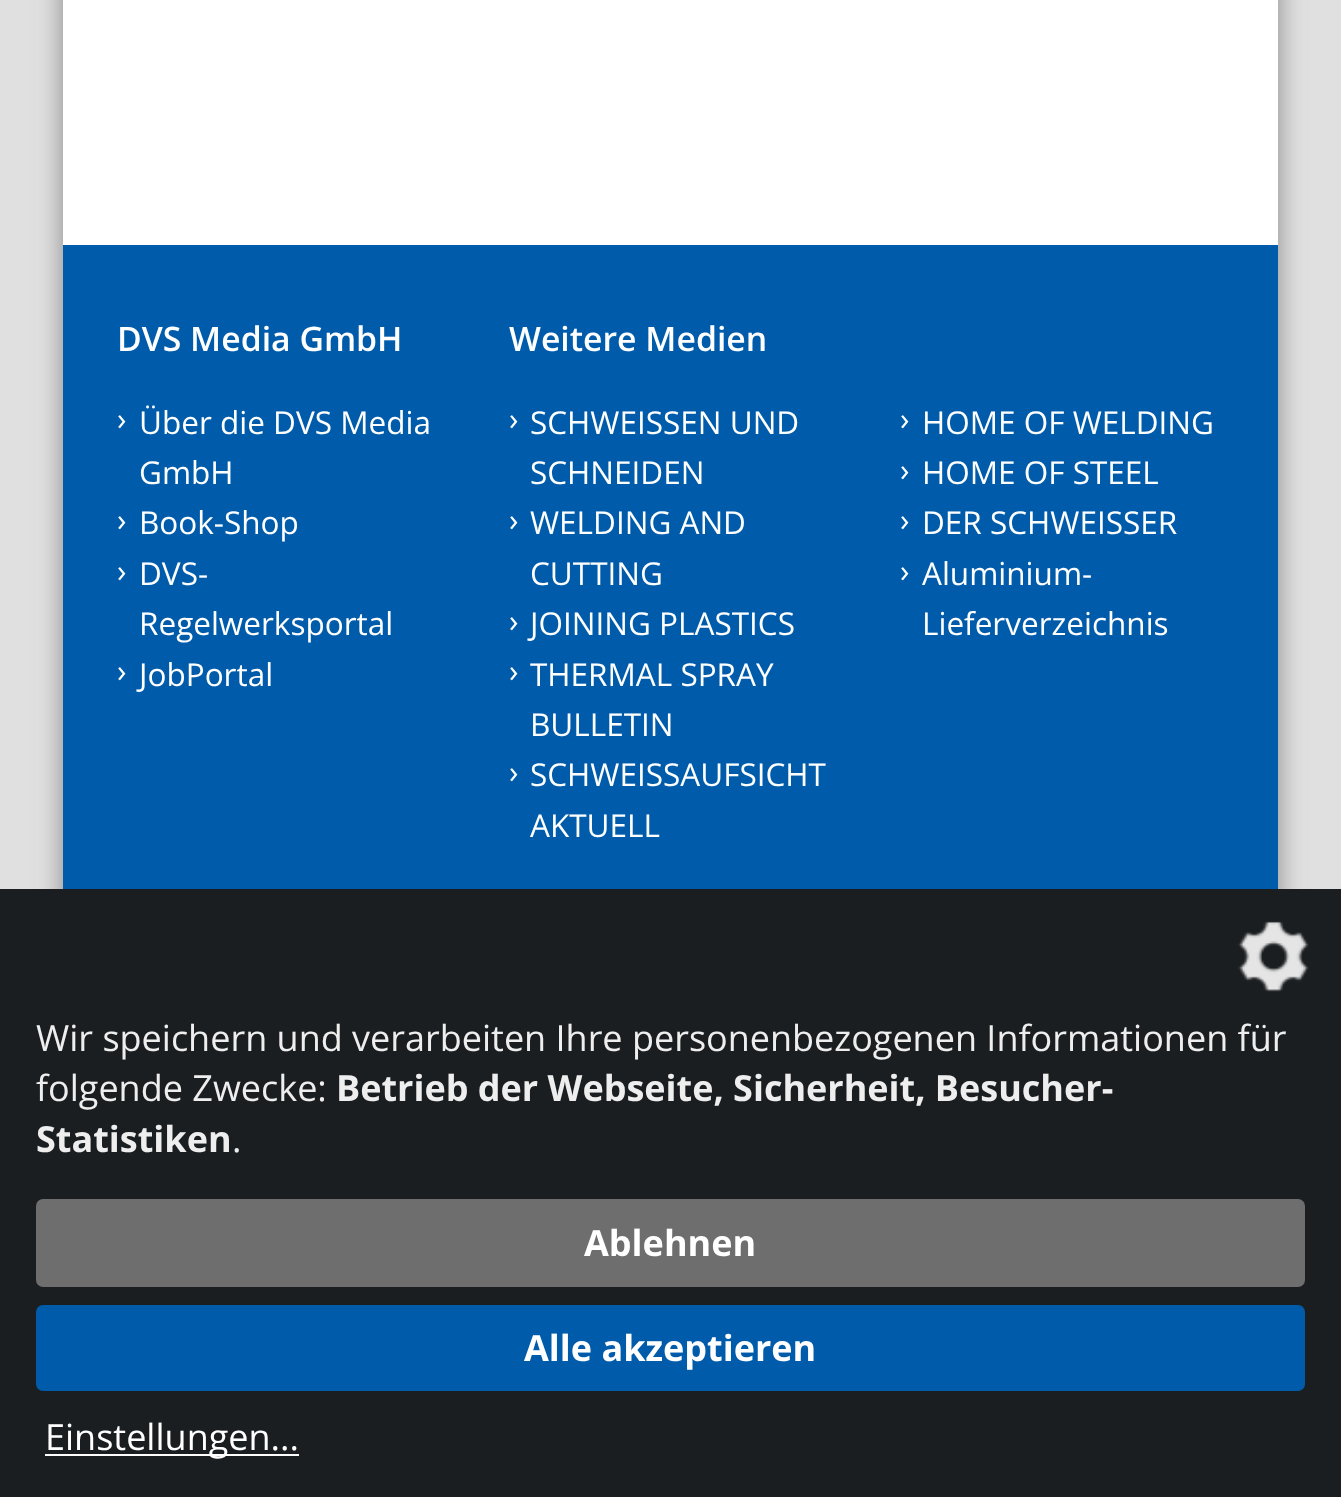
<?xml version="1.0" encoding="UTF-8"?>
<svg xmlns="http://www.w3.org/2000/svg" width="1341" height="1497">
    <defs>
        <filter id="blur1" x="-50%" y="-200%" width="200%" height="500%"><feGaussianBlur stdDeviation="13.5"/></filter>
    </defs>
    <rect width="100%" height="100%" fill="#E0E0E0"/>
    <rect x="63" y="-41" width="1215" height="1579" fill="#808080" fill-opacity="0.91" filter="url(#blur1)"/>
    <rect x="63" y="0" width="1215" height="245" fill="#FFFFFF"/>
    <rect x="63" y="245" width="1215" height="644" fill="#005CAA"/>
    <text x="117" y="351" font-family="Open Sans" font-size="33.75" font-weight="600" fill="#FFFFFF">DVS Media GmbH</text>
    <text x="117" y="430" font-family="Open Sans" font-size="31.5" fill="#FFFFFF">›</text>
    <text font-family="Open Sans" font-size="31.5" fill="#FFFFFF">
        <tspan x="139" y="434">Über die DVS Media</tspan>
        <tspan x="139" y="484">GmbH</tspan>
    </text>
    <text x="117" y="531" font-family="Open Sans" font-size="31.5" fill="#FFFFFF">›</text>
    <text x="139" y="534" font-family="Open Sans" font-size="31.5" fill="#FFFFFF">Book-Shop</text>
    <text x="117" y="582" font-family="Open Sans" font-size="31.5" fill="#FFFFFF">›</text>
    <text font-family="Open Sans" font-size="31.5" fill="#FFFFFF">
        <tspan x="139" y="585">DVS-</tspan>
        <tspan x="139" y="635">Regelwerksportal</tspan>
    </text>
    <text x="117" y="682" font-family="Open Sans" font-size="31.5" fill="#FFFFFF">›</text>
    <text x="139" y="686" font-family="Open Sans" font-size="31.5" fill="#FFFFFF">JobPortal</text>
    <text x="509" y="351" font-family="Open Sans" font-size="33.75" font-weight="600" fill="#FFFFFF">Weitere Medien</text>
    <text x="509" y="430" font-family="Open Sans" font-size="31.5" fill="#FFFFFF">›</text>
    <text font-family="Open Sans" font-size="31.5" fill="#FFFFFF">
        <tspan x="530" y="434">SCHWEISSEN UND</tspan>
        <tspan x="530" y="484">SCHNEIDEN</tspan>
    </text>
    <text x="509" y="531" font-family="Open Sans" font-size="31.5" fill="#FFFFFF">›</text>
    <text font-family="Open Sans" font-size="31.5" fill="#FFFFFF">
        <tspan x="530" y="534">WELDING AND</tspan>
        <tspan x="530" y="585">CUTTING</tspan>
    </text>
    <text x="509" y="632" font-family="Open Sans" font-size="31.5" fill="#FFFFFF">›</text>
    <text x="530" y="635" font-family="Open Sans" font-size="31.5" fill="#FFFFFF">JOINING PLASTICS</text>
    <text x="509" y="682" font-family="Open Sans" font-size="31.5" fill="#FFFFFF">›</text>
    <text font-family="Open Sans" font-size="31.5" fill="#FFFFFF">
        <tspan x="530" y="686">THERMAL SPRAY</tspan>
        <tspan x="530" y="736">BULLETIN</tspan>
    </text>
    <text x="509" y="783" font-family="Open Sans" font-size="31.5" fill="#FFFFFF">›</text>
    <text font-family="Open Sans" font-size="31.5" fill="#FFFFFF">
        <tspan x="530" y="786">SCHWEISSAUFSICHT</tspan>
        <tspan x="530" y="837">AKTUELL</tspan>
    </text>
    <text x="900" y="430" font-family="Open Sans" font-size="31.5" fill="#FFFFFF">›</text>
    <text x="922" y="434" font-family="Open Sans" font-size="31.5" fill="#FFFFFF">HOME OF WELDING</text>
    <text x="900" y="481" font-family="Open Sans" font-size="31.5" fill="#FFFFFF">›</text>
    <text x="922" y="484" font-family="Open Sans" font-size="31.5" fill="#FFFFFF">HOME OF STEEL</text>
    <text x="900" y="531" font-family="Open Sans" font-size="31.5" fill="#FFFFFF">›</text>
    <text x="922" y="534" font-family="Open Sans" font-size="31.5" fill="#FFFFFF">DER SCHWEISSER</text>
    <text x="900" y="582" font-family="Open Sans" font-size="31.5" fill="#FFFFFF">›</text>
    <text font-family="Open Sans" font-size="31.5" fill="#FFFFFF">
        <tspan x="922" y="585">Aluminium-</tspan>
        <tspan x="922" y="635">Lieferverzeichnis</tspan>
    </text>
    <rect x="0" y="889" width="1341" height="608" fill="#1B1E21"/>
    <image x="1238" y="921" width="71" height="71" href="img_01.png"/>
    <text font-family="Open Sans" font-size="36" fill="#EEEEEE">
        <tspan x="36" y="1051">Wir speichern und verarbeiten Ihre personenbezogenen Informationen für</tspan>
        <tspan x="36" y="1101">folgende Zwecke:</tspan>
    </text>
    <text x="336" y="1101" font-family="Open Sans" font-size="36" font-weight="700" fill="#EEEEEE">Betrieb der Webseite, Sicherheit, Besucher-</text>
    <text x="36" y="1152" font-family="Open Sans" font-size="36" font-weight="700" fill="#EEEEEE">Statistiken</text>
    <text x="232" y="1152" font-family="Open Sans" font-size="36" fill="#EEEEEE">.</text>
    <rect x="36" y="1199" width="1269" height="88" rx="7" fill="#6E6E6E"/>
    <text x="584" y="1256" font-family="Open Sans" font-size="36" font-weight="700" fill="#FFFFFF">Ablehnen</text>
    <rect x="36" y="1305" width="1269" height="86" rx="7" fill="#005CAA"/>
    <text x="524" y="1361" font-family="Open Sans" font-size="36" font-weight="700" fill="#FFFFFF">Alle akzeptieren</text>
    <rect x="45" y="1454" width="254" height="2" fill="#FFFFFF"/>
    <text x="45" y="1450" font-family="Open Sans" font-size="36" fill="#FFFFFF">Einstellungen...</text>
</svg>
